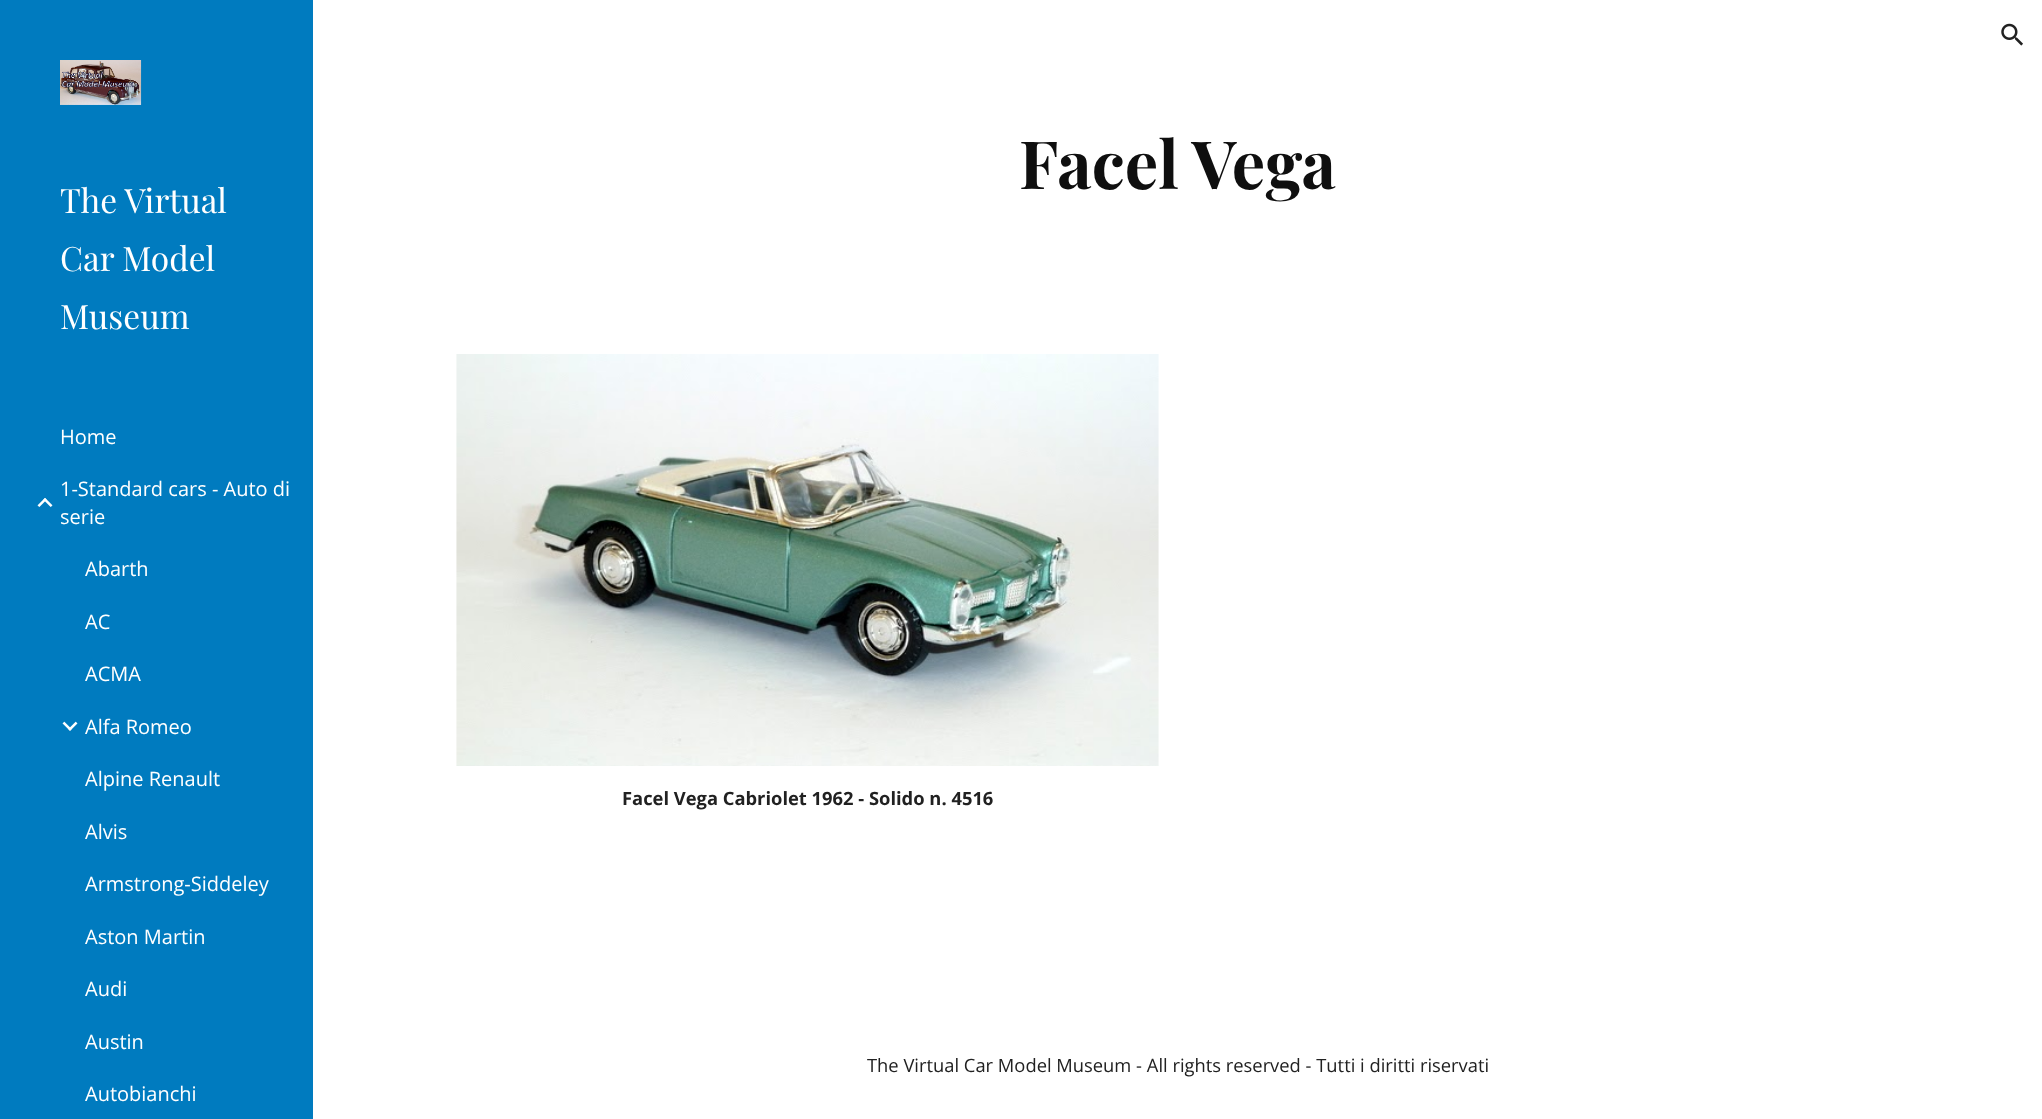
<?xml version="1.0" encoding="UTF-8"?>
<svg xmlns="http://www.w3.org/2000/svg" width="2042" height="1119">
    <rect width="100%" height="100%" fill="#FFFFFF"/>
    <image x="2001" y="23" width="22" height="23" href="img_01.png"/>
    <rect x="0" y="0" width="313" height="1119" fill="#007BBF"/>
    <image x="60" y="60" width="82" height="45" href="img_02.png"/>
    <text font-family="Playfair Display" font-size="33.5" fill="#FFFFFF">
        <tspan x="60" y="213">The Virtual</tspan>
        <tspan x="60" y="271">Car Model</tspan>
        <tspan x="60" y="329">Museum</tspan>
    </text>
    <text x="60" y="444" font-family="Open Sans" font-size="20" fill="#FFFFFF">Home</text>
    <image x="37" y="498" width="16" height="9" href="img_03.png"/>
    <text font-family="Open Sans" font-size="20" fill="#FFFFFF">
        <tspan x="60" y="496">1-Standard cars - Auto di</tspan>
        <tspan x="60" y="524">serie</tspan>
    </text>
    <text x="85" y="576" font-family="Open Sans" font-size="20" fill="#FFFFFF">Abarth</text>
    <text x="85" y="629" font-family="Open Sans" font-size="20" fill="#FFFFFF">AC</text>
    <text x="85" y="681" font-family="Open Sans" font-size="20" fill="#FFFFFF">ACMA</text>
    <image x="62" y="721" width="16" height="10" href="img_04.png"/>
    <text x="85" y="734" font-family="Open Sans" font-size="20" fill="#FFFFFF">Alfa Romeo</text>
    <text x="85" y="786" font-family="Open Sans" font-size="20" fill="#FFFFFF">Alpine Renault</text>
    <text x="85" y="839" font-family="Open Sans" font-size="20" fill="#FFFFFF">Alvis</text>
    <text x="85" y="891" font-family="Open Sans" font-size="20" fill="#FFFFFF">Armstrong-Siddeley</text>
    <text x="85" y="944" font-family="Open Sans" font-size="20" fill="#FFFFFF">Aston Martin</text>
    <text x="85" y="996" font-family="Open Sans" font-size="20" fill="#FFFFFF">Audi</text>
    <text x="85" y="1049" font-family="Open Sans" font-size="20" fill="#FFFFFF">Austin</text>
    <text x="85" y="1101" font-family="Open Sans" font-size="20" fill="#FFFFFF">Autobianchi</text>
    <text x="1019" y="189" font-family="Playfair Display" font-size="66.5" font-weight="700" fill="#0F0F0F">Facel Vega</text>
    <image x="456" y="354" width="703" height="412" href="img_05.png"/>
    <text x="622" y="805" font-family="Open Sans" font-size="18.35" font-weight="700" fill="#212121">Facel Vega Cabriolet 1962 - Solido n. 4516</text>
    <text x="867" y="1072" font-family="Open Sans" font-size="18.35" fill="#212121">The Virtual Car Model Museum - All rights reserved - Tutti i diritti riservati</text>
</svg>
